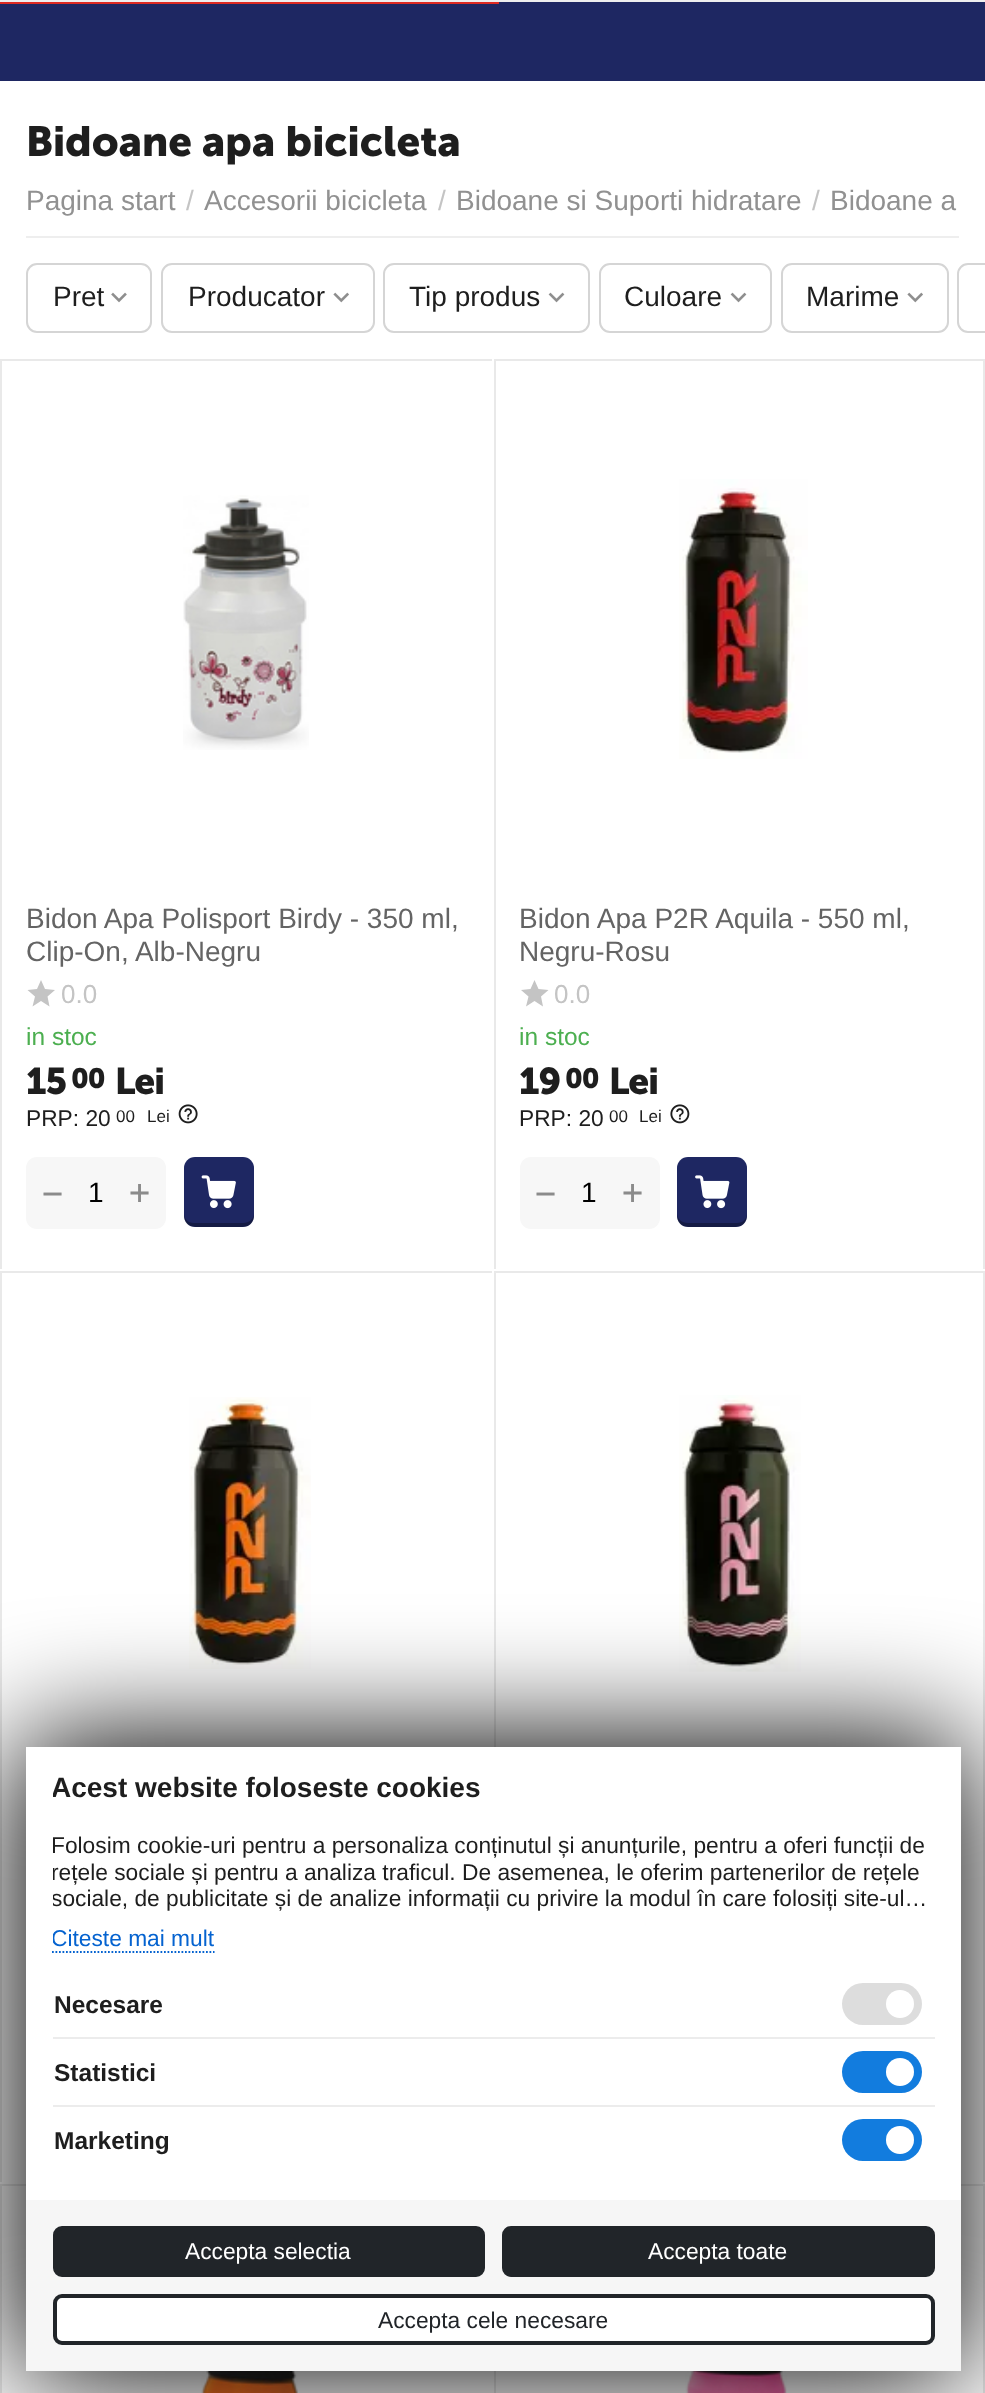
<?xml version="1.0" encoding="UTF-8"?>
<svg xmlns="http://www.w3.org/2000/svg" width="985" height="2393">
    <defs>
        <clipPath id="clip1"><rect x="0" y="359" width="985" height="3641"/></clipPath>
        <filter id="blur1" x="-50%" y="-200%" width="200%" height="500%"><feGaussianBlur stdDeviation="61"/></filter>
        <clipPath id="clip2"><rect x="53" y="1773" width="882" height="401"/></clipPath>
        <clipPath id="clip3"><rect x="53" y="1822" width="882" height="100"/></clipPath>
    </defs>
    <rect width="100%" height="100%" fill="#FFFFFF"/>
    <rect x="0" y="0" width="985" height="2" fill="#EEEEEE"/>
    <rect x="0" y="2" width="985" height="79" fill="#1E2762"/>
    <rect x="0" y="2" width="499" height="2" fill="#DE2A22"/>
    <text x="26" y="156" font-family="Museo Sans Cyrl" font-size="42" font-weight="700" fill="#1E1E1E">Bidoane apa bicicleta</text>
    <rect x="26" y="236" width="933" height="2" fill="#EEEEEE"/>
    <text x="26" y="210" font-family="Liberation Sans" font-size="28" fill="#919191">Pagina start</text>
    <text x="186" y="210" font-family="Liberation Sans" font-size="28" fill="#C4C4C4">/</text>
    <text x="204" y="210" font-family="Liberation Sans" font-size="28" fill="#919191">Accesorii bicicleta</text>
    <text x="438" y="210" font-family="Liberation Sans" font-size="28" fill="#C4C4C4">/</text>
    <text x="456" y="210" font-family="Liberation Sans" font-size="28" fill="#919191">Bidoane si Suporti hidratare</text>
    <text x="812" y="210" font-family="Liberation Sans" font-size="28" fill="#C4C4C4">/</text>
    <text x="830" y="210" font-family="Liberation Sans" font-size="28" fill="#919191">Bidoane a</text>
    <rect x="27" y="264" width="124" height="68" rx="10" fill="none" stroke="#D5D5D5" stroke-width="2"/>
    <text x="53" y="306" font-family="Liberation Sans" font-size="28" fill="#1E1E1E">Pret</text>
    <image x="111" y="292" width="16" height="11" href="img_01.png"/>
    <rect x="162" y="264" width="212" height="68" rx="10" fill="none" stroke="#D5D5D5" stroke-width="2"/>
    <text x="188" y="306" font-family="Liberation Sans" font-size="28" fill="#1E1E1E">Producator</text>
    <image x="333" y="292" width="16" height="11" href="img_02.png"/>
    <rect x="384" y="264" width="205" height="68" rx="10" fill="none" stroke="#D5D5D5" stroke-width="2"/>
    <text x="409" y="306" font-family="Liberation Sans" font-size="28" fill="#1E1E1E">Tip produs</text>
    <image x="548" y="292" width="17" height="11" href="img_03.png"/>
    <rect x="600" y="264" width="171" height="68" rx="10" fill="none" stroke="#D5D5D5" stroke-width="2"/>
    <text x="624" y="306" font-family="Liberation Sans" font-size="28" fill="#1E1E1E">Culoare</text>
    <image x="730" y="292" width="17" height="11" href="img_03.png"/>
    <rect x="782" y="264" width="166" height="68" rx="10" fill="none" stroke="#D5D5D5" stroke-width="2"/>
    <text x="806" y="306" font-family="Liberation Sans" font-size="28" fill="#1E1E1E">Marime</text>
    <image x="907" y="292" width="16" height="11" href="img_02.png"/>
    <rect x="958" y="264" width="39" height="68" rx="10" fill="none" stroke="#D5D5D5" stroke-width="2"/>
    <rect x="1" y="360" width="492" height="910" fill="none" stroke="#E9E9E9" stroke-width="2"/>
    <image x="183" y="495" width="126" height="255" href="img_04.png"/>
    <text font-family="Liberation Sans" font-size="28" fill="#646464">
        <tspan x="26" y="928">Bidon Apa Polisport Birdy - 350 ml,</tspan>
        <tspan x="26" y="961">Clip-On, Alb-Negru</tspan>
    </text>
    <path d="M 41 1001 L 49.5 1006.5 L 47.5 996.5 L 55 990 L 45 989 L 41 980 L 37 989 L 27.5 990 L 35 996.5 L 32.5 1006.5 Z" fill="#C4C4C4"/>
    <text x="61" y="1003" font-family="Liberation Sans" font-size="26" fill="#C4C4C4">0.0</text>
    <text x="26" y="1045" font-family="Liberation Sans" font-size="24.5" fill="#4CAF50">in stoc</text>
    <text x="26" y="1094" font-family="Museo Sans Cyrl" font-size="37" font-weight="700" letter-spacing="-1" fill="#1E1E1E">15</text>
    <text x="71" y="1088" font-family="Museo Sans Cyrl" font-size="28" font-weight="700" letter-spacing="-1" fill="#1E1E1E">00</text>
    <text x="115" y="1094" font-family="Museo Sans Cyrl" font-size="37" font-weight="700" letter-spacing="-1" fill="#1E1E1E">Lei</text>
    <text x="26" y="1126" font-family="Liberation Sans" font-size="22.75" fill="#1E1E1E">PRP: 20</text>
    <text x="116" y="1122" font-family="Liberation Sans" font-size="17" fill="#1E1E1E">00</text>
    <text x="147" y="1122" font-family="Liberation Sans" font-size="17" fill="#1E1E1E">Lei</text>
    <image x="178" y="1104" width="20" height="20" href="img_05.png"/>
    <rect x="26" y="1157" width="140" height="72" rx="11" fill="#F7F7F7"/>
    <text x="42" y="1205" font-family="DejaVu Sans Mono" font-size="35" fill="#8B8B8B">−</text>
    <text x="88" y="1202" font-family="Liberation Sans" font-size="28" fill="#000000">1</text>
    <text x="129" y="1204" font-family="DejaVu Sans Mono" font-size="35" fill="#8B8B8B">+</text>
    <rect x="184" y="1157" width="70" height="70" rx="11" fill="#1E2762"/>
    <path d="M 184 1213 C 184 1227 191 1227 203 1227 H 235 C 247 1227 254 1227 254 1213 C 254 1219 249 1223 243 1223 H 194 C 188 1223 184 1219 184 1213 Z" fill="#000000" fill-opacity="0.3"/>
    <image x="201" y="1175" width="35" height="34" href="img_06.png"/>
    <g clip-path="url(#clip1)">
        <rect x="493" y="358" width="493" height="913" fill="none" stroke="#FFFFFF" stroke-width="2"/>
    </g>
    <rect x="495" y="360" width="489" height="910" fill="none" stroke="#E9E9E9" stroke-width="2"/>
    <image x="679" y="479" width="129" height="280" href="img_07.png"/>
    <text font-family="Liberation Sans" font-size="28" fill="#646464">
        <tspan x="519" y="928">Bidon Apa P2R Aquila - 550 ml,</tspan>
        <tspan x="519" y="961">Negru-Rosu</tspan>
    </text>
    <path d="M 534.5 1001 L 543 1006.5 L 541 996.5 L 548.5 990 L 538.5 989 L 534.5 980 L 530.5 989 L 521 990 L 528.5 996.5 L 526 1006.5 Z" fill="#C4C4C4"/>
    <text x="554" y="1003" font-family="Liberation Sans" font-size="26" fill="#C4C4C4">0.0</text>
    <text x="519" y="1045" font-family="Liberation Sans" font-size="24.5" fill="#4CAF50">in stoc</text>
    <text x="519" y="1094" font-family="Museo Sans Cyrl" font-size="37" font-weight="700" letter-spacing="-1" fill="#1E1E1E">19</text>
    <text x="565" y="1088" font-family="Museo Sans Cyrl" font-size="28" font-weight="700" letter-spacing="-1" fill="#1E1E1E">00</text>
    <text x="609" y="1094" font-family="Museo Sans Cyrl" font-size="37" font-weight="700" letter-spacing="-1" fill="#1E1E1E">Lei</text>
    <text x="519" y="1126" font-family="Liberation Sans" font-size="22.75" fill="#1E1E1E">PRP: 20</text>
    <text x="609" y="1122" font-family="Liberation Sans" font-size="17" fill="#1E1E1E">00</text>
    <text x="639" y="1122" font-family="Liberation Sans" font-size="17" fill="#1E1E1E">Lei</text>
    <image x="670" y="1104" width="20" height="20" href="img_08.png"/>
    <rect x="520" y="1157" width="140" height="72" rx="11" fill="#F7F7F7"/>
    <text x="535" y="1205" font-family="DejaVu Sans Mono" font-size="35" fill="#8B8B8B">−</text>
    <text x="581" y="1202" font-family="Liberation Sans" font-size="28" fill="#000000">1</text>
    <text x="622" y="1204" font-family="DejaVu Sans Mono" font-size="35" fill="#8B8B8B">+</text>
    <rect x="677" y="1157" width="70" height="70" rx="11" fill="#1E2762"/>
    <path d="M 677 1213 C 677 1227 684 1227 696 1227 H 728 C 740 1227 747 1227 747 1213 C 747 1219 743 1223 737 1223 H 688 C 682 1223 677 1219 677 1213 Z" fill="#000000" fill-opacity="0.3"/>
    <image x="695" y="1175" width="35" height="34" href="img_09.png"/>
    <rect x="-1" y="1270" width="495" height="915" fill="none" stroke="#FFFFFF" stroke-width="2"/>
    <rect x="1" y="1272" width="492" height="911" fill="none" stroke="#E9E9E9" stroke-width="2"/>
    <image x="189" y="1397" width="122" height="272" href="img_10.png"/>
    <rect x="493" y="1270" width="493" height="915" fill="none" stroke="#FFFFFF" stroke-width="2"/>
    <rect x="495" y="1272" width="489" height="911" fill="none" stroke="#E9E9E9" stroke-width="2"/>
    <image x="679" y="1395" width="122" height="277" href="img_11.png"/>
    <rect x="-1" y="2183" width="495" height="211" fill="none" stroke="#FFFFFF" stroke-width="2"/>
    <rect x="1" y="2185" width="492" height="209" fill="none" stroke="#E9E9E9" stroke-width="2"/>
    <image x="201" y="2371" width="97" height="22" href="img_12.png"/>
    <rect x="493" y="2183" width="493" height="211" fill="none" stroke="#FFFFFF" stroke-width="2"/>
    <rect x="495" y="2185" width="489" height="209" fill="none" stroke="#E9E9E9" stroke-width="2"/>
    <image x="685" y="2371" width="102" height="22" href="img_13.png"/>
    <rect x="19" y="1740" width="945" height="635" fill="#000000" filter="url(#blur1)"/>
    <rect x="26" y="1747" width="935" height="453" fill="#FFFFFF"/>
    <g clip-path="url(#clip2)">
        <text x="51" y="1797" font-family="Liberation Sans" font-size="28" font-weight="700" fill="#1E1E1E">Acest website foloseste cookies</text>
    </g>
    <g clip-path="url(#clip3)">
        <text font-family="Liberation Sans" font-size="22.75" fill="#1E1E1E">
            <tspan x="51" y="1853">Folosim cookie-uri pentru a personaliza conținutul și anunțurile, pentru a oferi funcții de</tspan>
            <tspan x="51" y="1880">rețele sociale și pentru a analiza traficul. De asemenea, le oferim partenerilor de rețele</tspan>
            <tspan x="51" y="1906">sociale, de publicitate și de analize informații cu privire la modul în care folosiți site-ul…</tspan>
        </text>
    </g>
    <path d="M 52 1952 H 214.5" fill="none" stroke="#0563D0" stroke-width="1.8" stroke-dasharray="1.75 1.75"/>
    <g clip-path="url(#clip2)">
        <text x="51" y="1946" font-family="Liberation Sans" font-size="22.75" fill="#0563D0">Citeste mai mult</text>
    </g>
    <rect x="53" y="2037" width="882" height="2" fill="#ECECEC"/>
    <text x="54" y="2013" font-family="Liberation Sans" font-size="24.5" font-weight="700" fill="#1E1E1E">Necesare</text>
    <rect x="842" y="1983" width="80" height="42" rx="21" fill="#DDDDDD"/>
    <circle cx="900" cy="2004" r="14" fill="#FFFFFF"/>
    <rect x="53" y="2105" width="882" height="2" fill="#ECECEC"/>
    <text x="54" y="2081" font-family="Liberation Sans" font-size="24.5" font-weight="700" fill="#1E1E1E">Statistici</text>
    <rect x="842" y="2051" width="80" height="42" rx="21" fill="#127CDE"/>
    <circle cx="900" cy="2072" r="14" fill="#FFFFFF"/>
    <text x="54" y="2149" font-family="Liberation Sans" font-size="24.5" font-weight="700" fill="#1E1E1E">Marketing</text>
    <rect x="842" y="2119" width="80" height="42" rx="21" fill="#127CDE"/>
    <circle cx="900" cy="2140" r="14" fill="#FFFFFF"/>
    <rect x="26" y="2200" width="935" height="171" fill="#F6F6F6"/>
    <rect x="55" y="2228" width="428" height="47" rx="7" fill="#212529" stroke="#212529" stroke-width="4"/>
    <text x="185" y="2259" font-family="Liberation Sans" font-size="22.75" fill="#FFFFFF">Accepta selectia</text>
    <rect x="504" y="2228" width="429" height="47" rx="7" fill="#212529" stroke="#212529" stroke-width="4"/>
    <text x="648" y="2259" font-family="Liberation Sans" font-size="22.75" fill="#FFFFFF">Accepta toate</text>
    <rect x="55" y="2296" width="878" height="47" rx="7" fill="#FFFFFF" stroke="#212529" stroke-width="4"/>
    <text x="378" y="2328" font-family="Liberation Sans" font-size="22.75" fill="#212529">Accepta cele necesare</text>
</svg>
